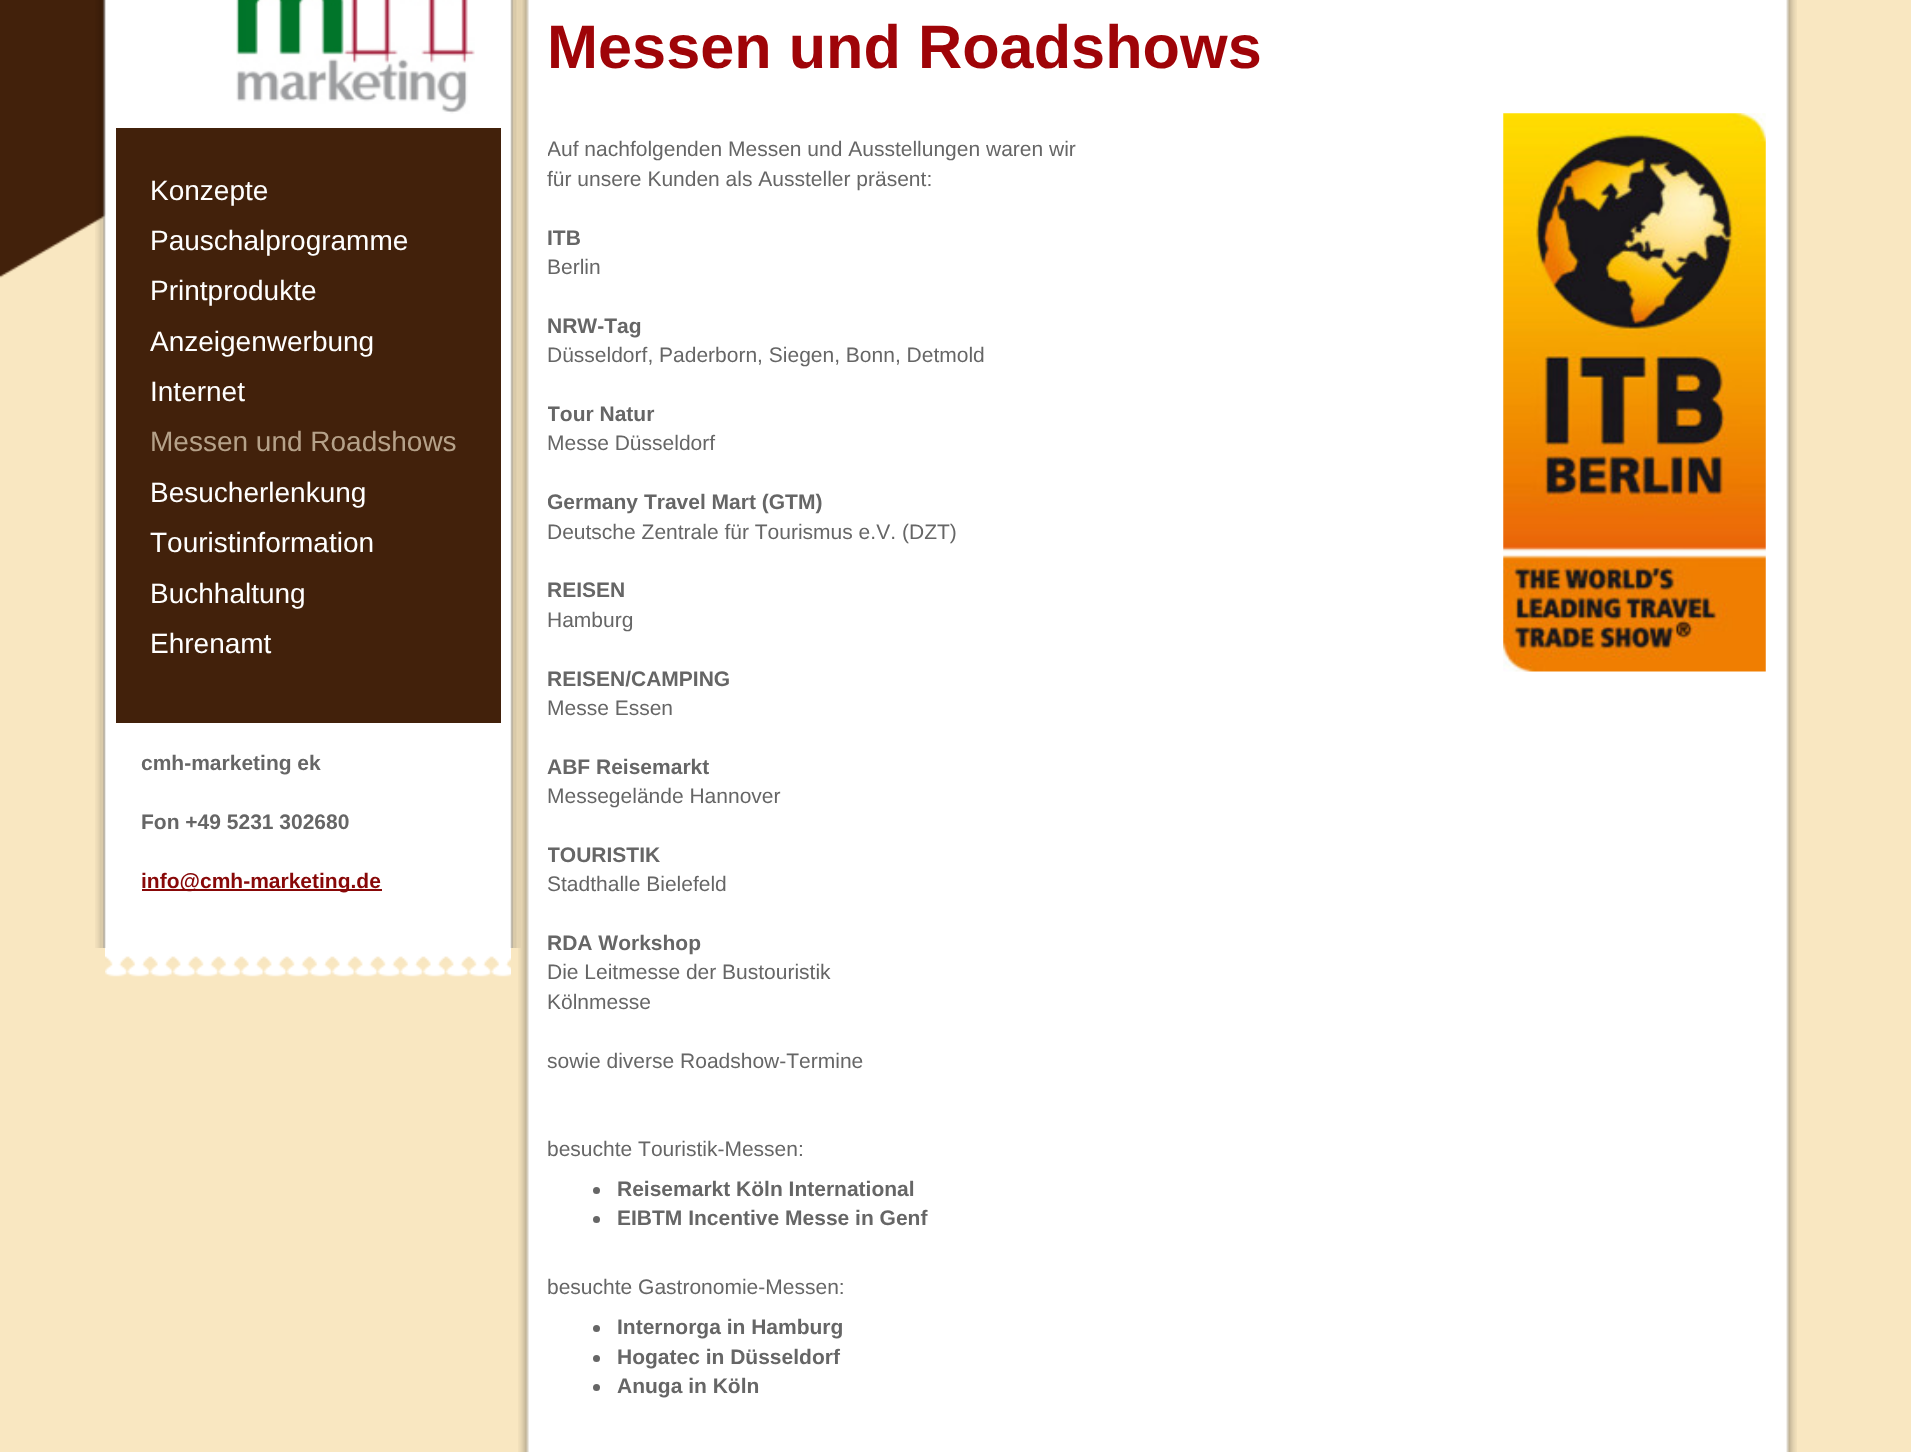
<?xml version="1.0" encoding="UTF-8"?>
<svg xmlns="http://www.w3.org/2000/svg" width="1911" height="1452">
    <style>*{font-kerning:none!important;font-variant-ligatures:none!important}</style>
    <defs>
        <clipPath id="clip1"><rect x="548" y="107" width="1220" height="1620"/></clipPath>
    </defs>
    <rect width="100%" height="100%" fill="#F9E7C1"/>
    <image x="0" y="0" width="106" height="278" href="img_01.png"/>
    <image x="95" y="0" width="426" height="948" href="img_02.png"/>
    <image x="236" y="0" width="239" height="114" href="img_03.png"/>
    <rect x="116" y="128" width="385" height="595" fill="#42210B"/>
    <text font-family="Liberation Sans" font-size="28" fill="#FFFFFF">
        <tspan x="150" y="200">Konzepte</tspan>
        <tspan x="150" y="250">Pauschalprogramme</tspan>
        <tspan x="150" y="300">Printprodukte</tspan>
        <tspan x="150" y="351">Anzeigenwerbung</tspan>
        <tspan x="150" y="401">Internet</tspan>
    </text>
    <text x="150" y="451" font-family="Liberation Sans" font-size="28" fill="#B5A189">Messen und Roadshows</text>
    <text font-family="Liberation Sans" font-size="28" fill="#FFFFFF">
        <tspan x="150" y="502">Besucherlenkung</tspan>
        <tspan x="150" y="552">Touristinformation</tspan>
        <tspan x="150" y="603">Buchhaltung</tspan>
        <tspan x="150" y="653">Ehrenamt</tspan>
    </text>
    <text x="141" y="770" font-family="Liberation Sans" font-size="21" font-weight="700" fill="#666666">cmh-marketing ek</text>
    <text x="141" y="829" font-family="Liberation Sans" font-size="21" font-weight="700" fill="#666666">Fon +49 5231 302680</text>
    <rect x="142" y="889" width="240" height="2" fill="#880808"/>
    <text x="141" y="888" font-family="Liberation Sans" font-size="21" font-weight="700" fill="#880808">info@cmh-marketing.de</text>
    <image x="105" y="948" width="406" height="29" href="img_04.png"/>
    <image x="518" y="0" width="1279" height="1452" href="img_05.png"/>
    <text x="547" y="68" font-family="Liberation Sans" font-size="61.25" font-weight="700" fill="#9F0408">Messen und Roadshows</text>
    <g clip-path="url(#clip1)">
        <text x="547" y="156" font-family="Liberation Sans" font-size="21" fill="#666666">Auf nachfolgenden Messen und Ausstellungen waren wir</text>
    </g>
    <text x="547" y="186" font-family="Liberation Sans" font-size="21" fill="#666666">für unsere Kunden als Aussteller präsent:</text>
    <text x="547" y="245" font-family="Liberation Sans" font-size="21" font-weight="700" fill="#666666">ITB</text>
    <text x="547" y="274" font-family="Liberation Sans" font-size="21" fill="#666666">Berlin</text>
    <text x="547" y="333" font-family="Liberation Sans" font-size="21" font-weight="700" fill="#666666">NRW-Tag</text>
    <text x="547" y="362" font-family="Liberation Sans" font-size="21" fill="#666666">Düsseldorf, Paderborn, Siegen, Bonn, Detmold</text>
    <g clip-path="url(#clip1)">
        <text x="547" y="421" font-family="Liberation Sans" font-size="21" font-weight="700" fill="#666666">Tour Natur</text>
    </g>
    <text x="547" y="450" font-family="Liberation Sans" font-size="21" fill="#666666">Messe Düsseldorf</text>
    <g clip-path="url(#clip1)">
        <text x="547" y="509" font-family="Liberation Sans" font-size="21" font-weight="700" fill="#666666">Germany Travel Mart (GTM)</text>
    </g>
    <text x="547" y="539" font-family="Liberation Sans" font-size="21" fill="#666666">Deutsche Zentrale für Tourismus e.V.</text>
    <text x="902" y="539" font-family="Liberation Sans" font-size="21" fill="#666666">(DZT)</text>
    <text x="547" y="597" font-family="Liberation Sans" font-size="21" font-weight="700" fill="#666666">REISEN</text>
    <text x="547" y="627" font-family="Liberation Sans" font-size="21" fill="#666666">Hamburg</text>
    <text x="547" y="686" font-family="Liberation Sans" font-size="21" font-weight="700" fill="#666666">REISEN/CAMPING</text>
    <text x="547" y="715" font-family="Liberation Sans" font-size="21" fill="#666666">Messe Essen</text>
    <text x="547" y="774" font-family="Liberation Sans" font-size="21" font-weight="700" fill="#666666">ABF Reisemarkt</text>
    <text x="547" y="803" font-family="Liberation Sans" font-size="21" fill="#666666">Messegelände Hannover</text>
    <g clip-path="url(#clip1)">
        <text x="547" y="862" font-family="Liberation Sans" font-size="21" font-weight="700" fill="#666666">TOURISTIK</text>
    </g>
    <text x="547" y="891" font-family="Liberation Sans" font-size="21" fill="#666666">Stadthalle Bielefeld</text>
    <text x="547" y="950" font-family="Liberation Sans" font-size="21" font-weight="700" fill="#666666">RDA Workshop</text>
    <text font-family="Liberation Sans" font-size="21" fill="#666666">
        <tspan x="547" y="979">Die Leitmesse der Bustouristik</tspan>
        <tspan x="547" y="1009">Kölnmesse</tspan>
    </text>
    <text x="547" y="1068" font-family="Liberation Sans" font-size="21" fill="#666666">sowie diverse Roadshow-Termine</text>
    <text x="547" y="1156" font-family="Liberation Sans" font-size="21" fill="#666666">besuchte Touristik-Messen:</text>
    <circle cx="596.5" cy="1190.5" r="3.5" fill="#666666"/>
    <text x="617" y="1196" font-family="Liberation Sans" font-size="21" font-weight="700" fill="#666666">Reisemarkt Köln International</text>
    <circle cx="596.5" cy="1219.5" r="3.5" fill="#666666"/>
    <text x="617" y="1225" font-family="Liberation Sans" font-size="21" font-weight="700" fill="#666666">EIBTM Incentive Messe in Genf</text>
    <text x="547" y="1294" font-family="Liberation Sans" font-size="21" fill="#666666">besuchte Gastronomie-Messen:</text>
    <circle cx="596.5" cy="1328.5" r="3.5" fill="#666666"/>
    <text x="617" y="1334" font-family="Liberation Sans" font-size="21" font-weight="700" fill="#666666">Internorga in Hamburg</text>
    <circle cx="596.5" cy="1358.5" r="3.5" fill="#666666"/>
    <text x="617" y="1364" font-family="Liberation Sans" font-size="21" font-weight="700" fill="#666666">Hogatec in Düsseldorf</text>
    <circle cx="596.5" cy="1387.5" r="3.5" fill="#666666"/>
    <text x="617" y="1393" font-family="Liberation Sans" font-size="21" font-weight="700" fill="#666666">Anuga in Köln</text>
    <image x="1503" y="113" width="263" height="559" href="img_06.png"/>
</svg>
